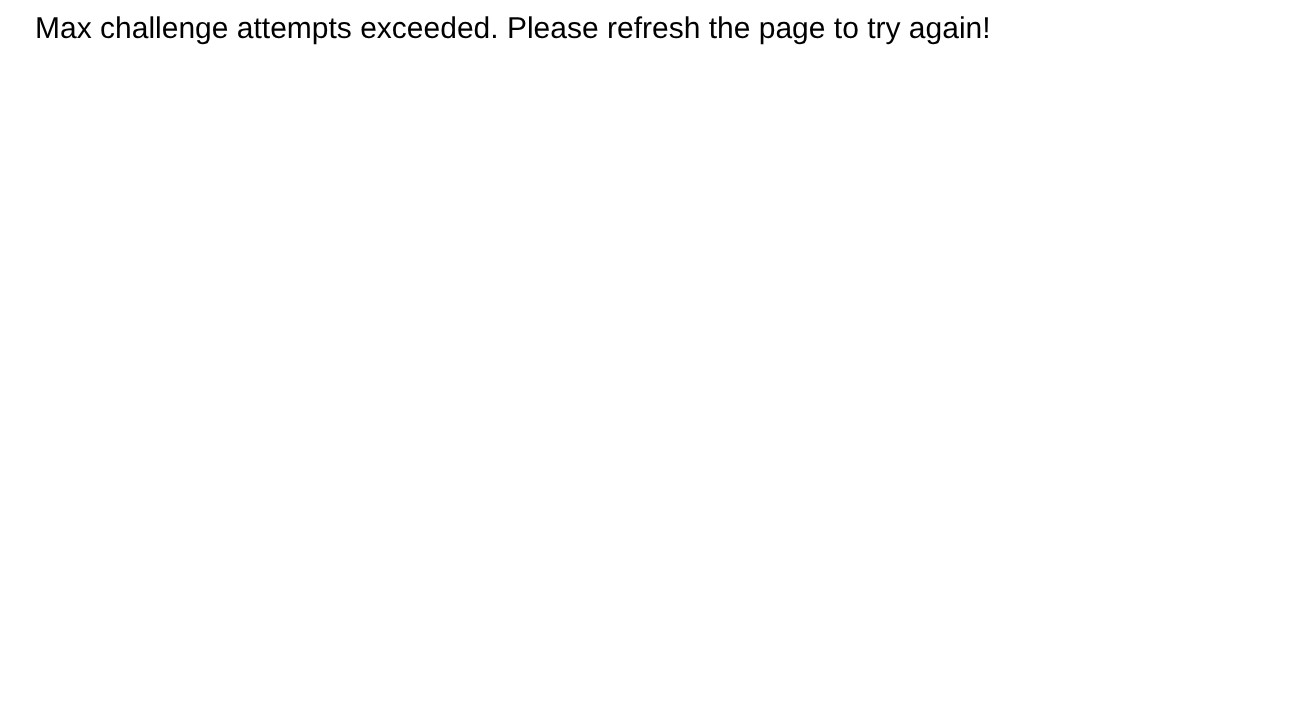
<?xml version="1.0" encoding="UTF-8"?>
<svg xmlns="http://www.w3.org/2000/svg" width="1304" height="708">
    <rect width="100%" height="100%" fill="#FFFFFF"/>
    <text x="35" y="38" font-family="Liberation Sans" font-size="30" fill="#000000">Max challenge attempts exceeded. Please refresh the page to try again!</text>
</svg>
